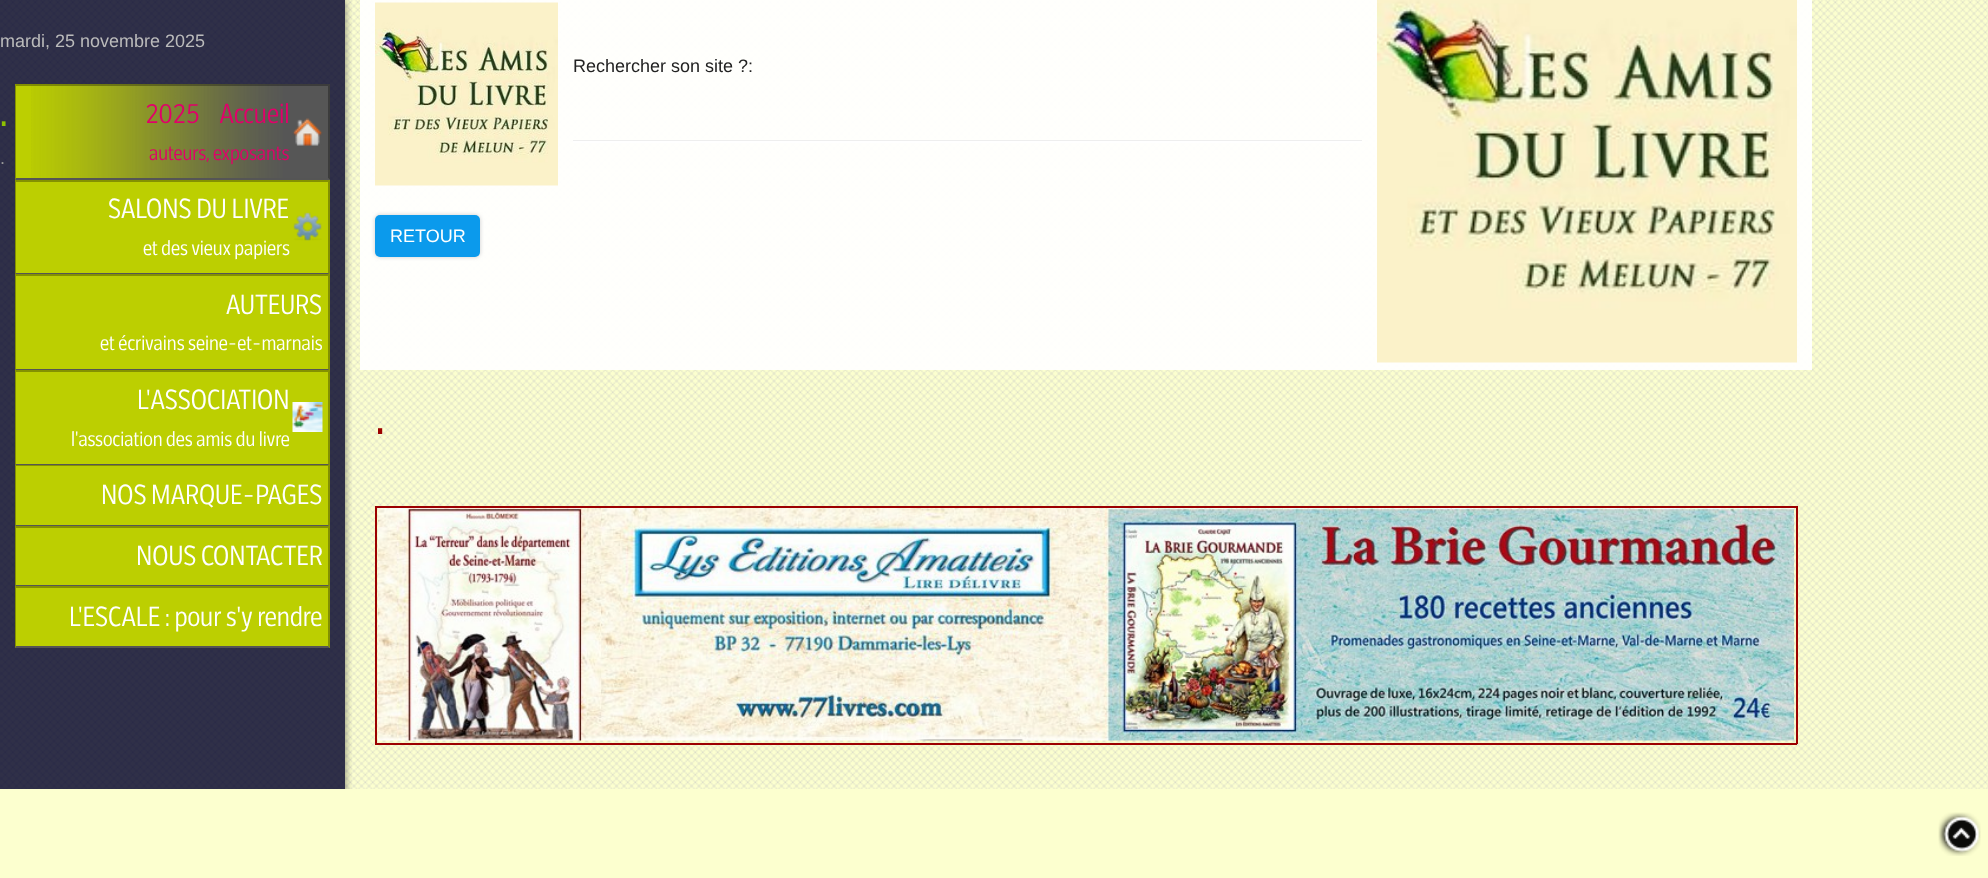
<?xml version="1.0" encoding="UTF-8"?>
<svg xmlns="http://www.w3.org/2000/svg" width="1988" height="878">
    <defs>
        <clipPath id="clip1"><rect x="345" y="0" width="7" height="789"/></clipPath>
        <filter id="blur1" x="-50%" y="-200%" width="200%" height="500%"><feGaussianBlur stdDeviation="4"/></filter>
        <filter id="blur2" x="-50%" y="-200%" width="200%" height="500%"><feGaussianBlur stdDeviation="2"/></filter>
    </defs>
    <rect width="100%" height="100%" fill="#FCFFCF"/>
    <image x="0" y="0" width="1988" height="789" href="img_01.png"/>
    <g clip-path="url(#clip1)">
        <rect x="0" y="0" width="345" height="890" fill="#000000" fill-opacity="0.5" filter="url(#blur1)"/>
    </g>
    <rect x="0" y="0" width="345" height="789" fill="#000029" fill-opacity="0.81"/>
    <text x="0" y="47" font-family="Liberation Sans" font-size="18" fill="#BBBBBB">mardi, 25 novembre 2025</text>
    <text x="0" y="126" font-family="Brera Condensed" font-size="36" font-weight="700" fill="#8EC101">.</text>
    <text x="0" y="164" font-family="Liberation Sans" font-size="18" fill="#999999">.</text>
    <rect x="15" y="84" width="268" height="96" fill="#BCCF01"/>
    <image x="31" y="84" width="299" height="96" href="img_02.png"/>
    <path d="M 15 84 H 330 L 328 86 H 16 Z" fill="#000000" fill-opacity="0.3"/>
    <path d="M 330 84 V 180 L 328 178 V 86 Z" fill="#000000" fill-opacity="0.3"/>
    <path d="M 330 180 H 15 L 16 178 H 328 Z" fill="#555555"/>
    <path d="M 15 180 V 84 L 16 86 V 178 Z" fill="#000000" fill-opacity="0.3"/>
    <image x="292" y="118" width="31" height="28" href="img_03.png"/>
    <text x="145" y="123" font-family="Brera Condensed" font-size="27" font-weight="300" fill="#E1006A">2025 • Accueil</text>
    <text x="149" y="160" font-family="Brera Condensed" font-size="20.25" font-weight="300" fill="#E1006A">auteurs, exposants</text>
    <rect x="15" y="180" width="315" height="468" fill="#BCCF01"/>
    <path d="M 15 180 H 330 L 328 182 H 16 Z" fill="#849101"/>
    <path d="M 330 180 V 274 L 328 273 V 182 Z" fill="#000000" fill-opacity="0.3"/>
    <path d="M 330 274 H 15 L 16 273 H 328 Z" fill="#555555"/>
    <path d="M 15 274 V 180 L 16 182 V 273 Z" fill="#000000" fill-opacity="0.3"/>
    <image x="293" y="212" width="29" height="29" href="img_04.png"/>
    <text x="108" y="218" font-family="Brera Condensed" font-size="27" font-weight="300" fill="#FFFFFF">SALONS DU LIVRE</text>
    <text x="143" y="255" font-family="Brera Condensed" font-size="20.25" font-weight="300" fill="#FFFFFF">et des vieux papiers</text>
    <path d="M 15 274 H 330 L 328 276 H 16 Z" fill="#849101"/>
    <path d="M 330 274 V 370 L 328 369 V 276 Z" fill="#000000" fill-opacity="0.3"/>
    <path d="M 330 370 H 15 L 16 369 H 328 Z" fill="#555555"/>
    <path d="M 15 370 V 274 L 16 276 V 369 Z" fill="#000000" fill-opacity="0.3"/>
    <text x="226" y="314" font-family="Brera Condensed" font-size="27" font-weight="300" fill="#FFFFFF">AUTEURS</text>
    <text x="100" y="350" font-family="Brera Condensed" font-size="20.25" font-weight="300" fill="#FFFFFF">et écrivains seine-et-marnais</text>
    <path d="M 15 370 H 330 L 328 372 H 16 Z" fill="#849101"/>
    <path d="M 330 370 V 465 L 328 464 V 372 Z" fill="#000000" fill-opacity="0.3"/>
    <path d="M 330 465 H 15 L 16 464 H 328 Z" fill="#555555"/>
    <path d="M 15 465 V 370 L 16 372 V 464 Z" fill="#000000" fill-opacity="0.3"/>
    <image x="292" y="402" width="31" height="30" href="img_05.png"/>
    <text x="137" y="409" font-family="Brera Condensed" font-size="27" font-weight="300" fill="#FFFFFF">L'ASSOCIATION</text>
    <text x="71" y="446" font-family="Brera Condensed" font-size="20.25" font-weight="300" fill="#FFFFFF">l'association des amis du livre</text>
    <path d="M 15 465 H 330 L 328 466 H 16 Z" fill="#849101"/>
    <path d="M 330 465 V 526 L 328 525 V 466 Z" fill="#000000" fill-opacity="0.3"/>
    <path d="M 330 526 H 15 L 16 525 H 328 Z" fill="#555555"/>
    <path d="M 15 526 V 465 L 16 466 V 525 Z" fill="#000000" fill-opacity="0.3"/>
    <text x="101" y="504" font-family="Brera Condensed" font-size="27" font-weight="300" fill="#FFFFFF">NOS MARQUE-PAGES</text>
    <path d="M 15 526 H 330 L 328 528 H 16 Z" fill="#849101"/>
    <path d="M 330 526 V 586 L 328 585 V 528 Z" fill="#000000" fill-opacity="0.3"/>
    <path d="M 330 586 H 15 L 16 585 H 328 Z" fill="#555555"/>
    <path d="M 15 586 V 526 L 16 528 V 585 Z" fill="#000000" fill-opacity="0.3"/>
    <text x="136" y="565" font-family="Brera Condensed" font-size="27" font-weight="300" fill="#FFFFFF">NOUS CONTACTER</text>
    <path d="M 15 586 H 330 L 328 588 H 16 Z" fill="#849101"/>
    <path d="M 330 586 V 648 L 328 646 V 588 Z" fill="#000000" fill-opacity="0.3"/>
    <path d="M 330 648 H 15 L 16 646 H 328 Z" fill="#555555"/>
    <path d="M 15 648 V 586 L 16 588 V 646 Z" fill="#000000" fill-opacity="0.3"/>
    <text x="69" y="626" font-family="Brera Condensed" font-size="27" font-weight="300" fill="#FFFFFF">L'ESCALE : pour s'y rendre</text>
    <rect x="360" y="0" width="1452" height="370" fill="#FFFFFF" fill-opacity="0.94"/>
    <image x="375" y="2" width="183" height="184" href="img_06.png"/>
    <text x="573" y="72" font-family="Liberation Sans" font-size="18" fill="#222222">Rechercher son site ?:</text>
    <image x="1377" y="0" width="420" height="363" href="img_07.png"/>
    <rect x="573" y="140" width="789" height="1" fill="#EEEEEE"/>
    <rect x="573" y="141" width="789" height="2" fill="#FFFFFF"/>
    <rect x="375" y="215" width="105" height="42" rx="5" fill="#CCCCCC" filter="url(#blur2)"/>
    <rect x="375" y="215" width="105" height="42" rx="5" fill="#0B9AEC"/>
    <text x="390" y="242" font-family="Liberation Sans" font-size="18" fill="#FFFFFF">RETOUR</text>
    <text x="375" y="434" font-family="Brera Condensed" font-size="58" font-weight="300" fill="#9C0000">.</text>
    <rect x="375" y="506" width="1422" height="2" fill="#9C0000"/>
    <rect x="1796" y="506" width="2" height="238" fill="#9C0000"/>
    <rect x="375" y="743" width="1422" height="2" fill="#9C0000"/>
    <rect x="375" y="506" width="2" height="238" fill="#9C0000"/>
    <image x="378" y="508" width="1416" height="233" href="img_08.png"/>
    <rect x="345" y="789" width="8" height="89" fill="#FCFFCF"/>
    <image x="1938" y="812" width="43" height="44" href="img_09.png"/>
</svg>
